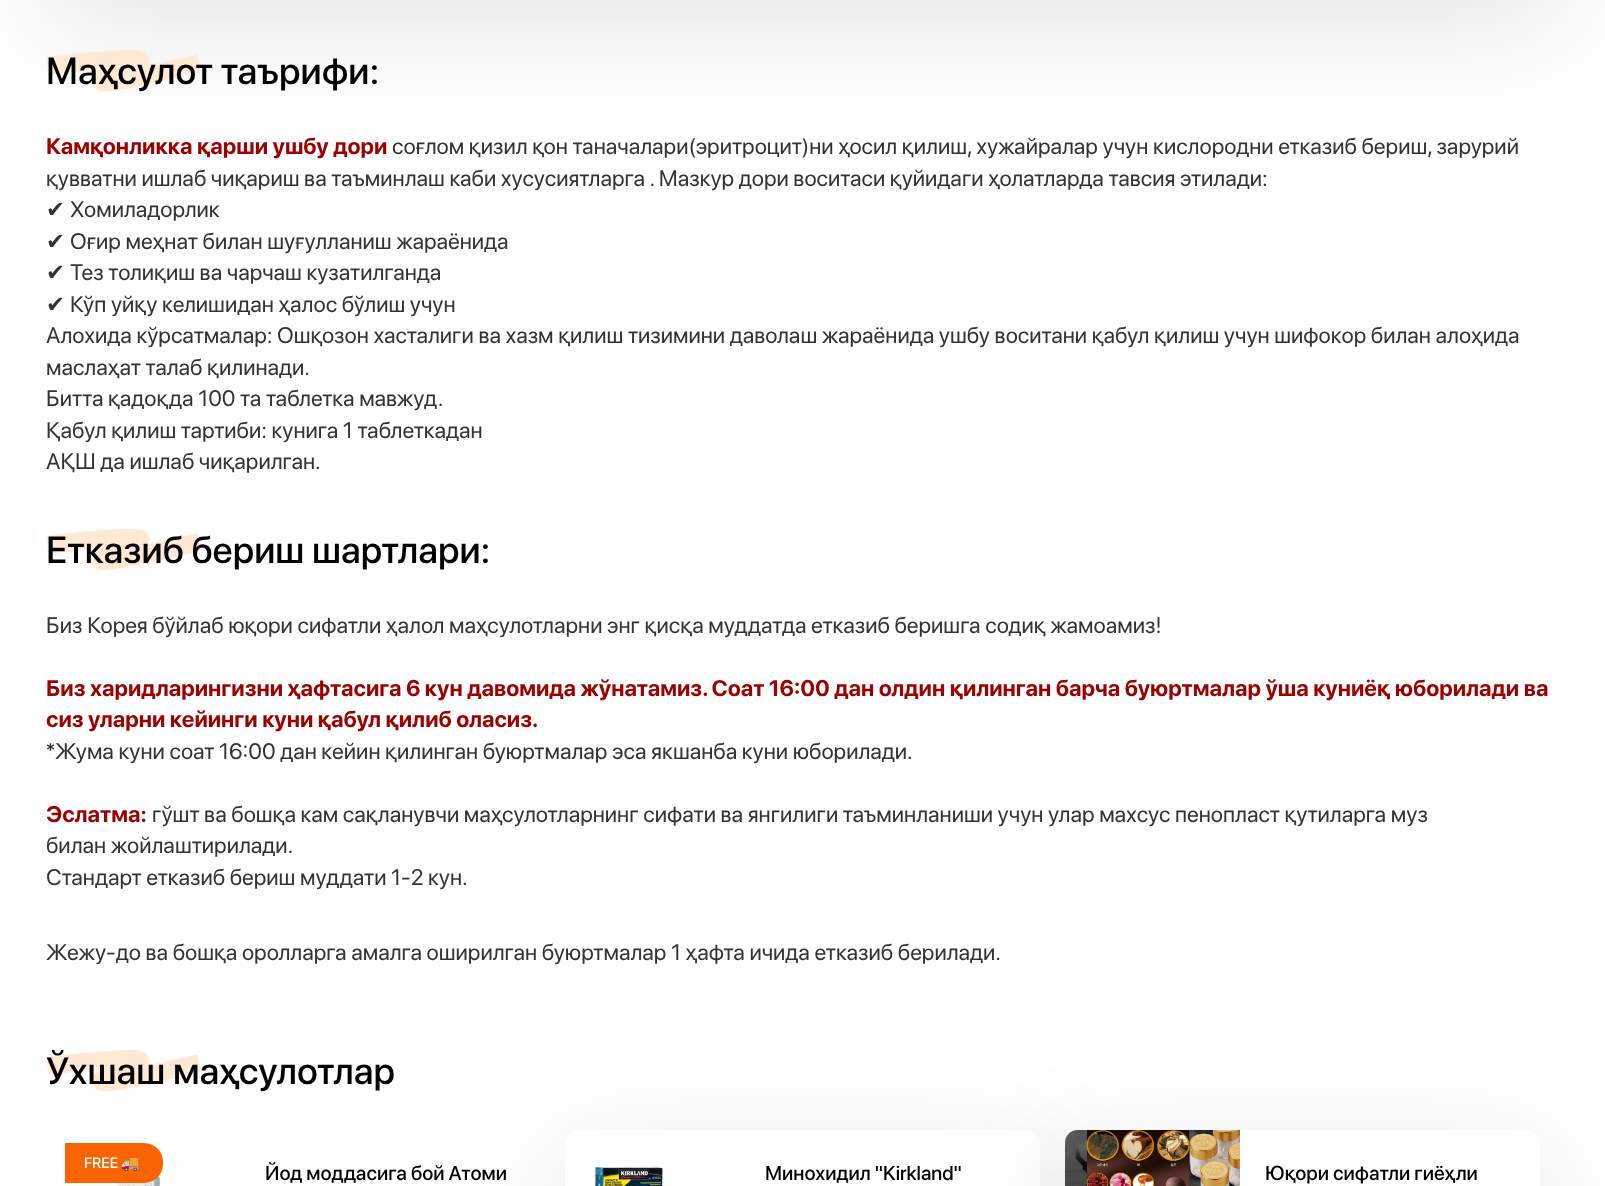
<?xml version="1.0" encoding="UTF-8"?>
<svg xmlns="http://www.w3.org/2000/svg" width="1605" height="1186">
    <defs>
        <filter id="blur1" x="-50%" y="-200%" width="200%" height="500%"><feGaussianBlur stdDeviation="57"/></filter>
    </defs>
    <rect width="100%" height="100%" fill="#FFFFFF"/>
    <rect x="48" y="-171" width="1512" height="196" fill="#000000" fill-opacity="0.1" filter="url(#blur1)"/>
    <image x="46" y="50" width="156" height="42" href="img_01.png"/>
    <text x="46" y="84" font-family="SF Pro Display" font-size="37.5" font-weight="500" fill="#000000">Маҳсулот таърифи:</text>
    <text x="46" y="154" font-family="SF Pro Display" font-size="22.5" font-weight="700" fill="#9C0000">Камқонликка қарши ушбу дори</text>
    <text x="392" y="154" font-family="SF Pro Display" font-size="22.5" fill="#333333">соғлом қизил қон таначалари(эритроцит)ни ҳосил қилиш, хужайралар учун кислородни етказиб бериш, зарурий</text>
    <text x="46" y="186" font-family="SF Pro Display" font-size="22.5" fill="#333333">қувватни ишлаб чиқариш ва таъминлаш каби хусусиятларга . Мазкур дори воситаси қуйидаги ҳолатларда тавсия этилади:</text>
    <text x="46" y="217" font-family="DejaVu Sans" font-size="22.5" fill="#333333">✔</text>
    <text x="70" y="217" font-family="SF Pro Display" font-size="22.5" fill="#333333">Хомиладорлик</text>
    <text x="46" y="249" font-family="DejaVu Sans" font-size="22.5" fill="#333333">✔</text>
    <text x="70" y="249" font-family="SF Pro Display" font-size="22.5" fill="#333333">Оғир меҳнат билан шуғулланиш жараёнида</text>
    <text x="46" y="280" font-family="DejaVu Sans" font-size="22.5" fill="#333333">✔</text>
    <text x="70" y="280" font-family="SF Pro Display" font-size="22.5" fill="#333333">Тез толиқиш ва чарчаш кузатилганда</text>
    <text x="46" y="312" font-family="DejaVu Sans" font-size="22.5" fill="#333333">✔</text>
    <text x="70" y="312" font-family="SF Pro Display" font-size="22.5" fill="#333333">Кўп уйқу келишидан ҳалос бўлиш учун</text>
    <text font-family="SF Pro Display" font-size="22.5" fill="#333333">
        <tspan x="46" y="343">Алохида кўрсатмалар: Ошқозон хасталиги ва хазм қилиш тизимини даволаш жараёнида ушбу воситани қабул қилиш учун шифокор билан алоҳида</tspan>
        <tspan x="46" y="375">маслаҳат талаб қилинади.</tspan>
        <tspan x="46" y="406">Битта қадоқда 100 та таблетка мавжуд.</tspan>
        <tspan x="46" y="438">Қабул қилиш тартиби: кунига 1 таблеткадан</tspan>
        <tspan x="46" y="469">АҚШ да ишлаб чиқарилган.</tspan>
    </text>
    <image x="46" y="528" width="156" height="43" href="img_02.png"/>
    <text x="46" y="563" font-family="SF Pro Display" font-size="37.5" font-weight="500" fill="#000000">Етказиб бериш шартлари:</text>
    <text x="46" y="633" font-family="SF Pro Display" font-size="22.5" fill="#333333">Биз Корея бўйлаб юқори сифатли ҳалол маҳсулотларни энг қисқа муддатда етказиб беришга содиқ жамоамиз!</text>
    <text font-family="SF Pro Display" font-size="22.5" font-weight="700" fill="#9C0000">
        <tspan x="46" y="696">Биз харидларингизни ҳафтасига 6 кун давомида жўнатамиз. Соат 16:00 дан олдин қилинган барча буюртмалар ўша куниёқ юборилади ва</tspan>
        <tspan x="46" y="727">сиз уларни кейинги куни қабул қилиб оласиз.</tspan>
    </text>
    <text x="46" y="759" font-family="SF Pro Display" font-size="22.5" fill="#333333">*Жума куни соат 16:00 дан кейин қилинган буюртмалар эса якшанба куни юборилади.</text>
    <text x="46" y="822" font-family="SF Pro Display" font-size="22.5" font-weight="700" fill="#9C0000">Эслатма:</text>
    <text x="152" y="822" font-family="SF Pro Display" font-size="22.5" fill="#333333">гўшт ва бошқа кам сақланувчи маҳсулотларнинг сифати ва янгилиги таъминланиши учун улар махсус пенопласт қутиларга муз</text>
    <text font-family="SF Pro Display" font-size="22.5" fill="#333333">
        <tspan x="46" y="853">билан жойлаштирилади.</tspan>
        <tspan x="46" y="885">Стандарт етказиб бериш муддати 1-2 кун.</tspan>
    </text>
    <text x="46" y="960" font-family="SF Pro Display" font-size="22.5" fill="#333333">Жежу-до ва бошқа оролларга амалга оширилган буюртмалар 1 ҳафта ичида етказиб берилади.</text>
    <image x="46" y="1050" width="156" height="42" href="img_03.png"/>
    <text x="46" y="1084" font-family="SF Pro Display" font-size="37.5" font-weight="500" fill="#000000">Ўхшаш маҳсулотлар</text>
    <image x="116" y="1176" width="45" height="10" href="img_04.png"/>
    <path d="M 65 1143 H 144 C 154.5 1143 163 1151.5 163 1162 V 1164 C 163 1174.5 154.5 1183 144 1183 H 65 Z" fill="#FA6400"/>
    <text x="84" y="1168" font-family="SF Pro Display" font-size="15" font-weight="500" fill="#FFFFFF">FREE</text>
    <text x="121" y="1168" font-family="Noto Color Emoji" font-size="15" fill="#FFFFFF">🚚</text>
    <text x="265" y="1180" font-family="SF Pro Display" font-size="20" font-weight="500" fill="#000000">Йод моддасига бой Атоми</text>
    <rect x="566" y="1158" width="475" height="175" rx="13" fill="#000000" fill-opacity="0.1" filter="url(#blur1)"/>
    <rect x="565" y="1130" width="475" height="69" rx="13" fill="#FFFFFF"/>
    <image x="594" y="1165" width="69" height="21" href="img_05.png"/>
    <text x="765" y="1180" font-family="SF Pro Display" font-size="20" font-weight="500" fill="#000000">Минохидил "Kirkland"</text>
    <rect x="1066" y="1158" width="475" height="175" rx="13" fill="#000000" fill-opacity="0.1" filter="url(#blur1)"/>
    <rect x="1065" y="1130" width="475" height="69" rx="13" fill="#FFFFFF"/>
    <image x="1065" y="1130" width="175" height="56" href="img_06.png"/>
    <text x="1265" y="1180" font-family="SF Pro Display" font-size="20" font-weight="500" fill="#000000">Юқори сифатли гиёҳли</text>
</svg>
